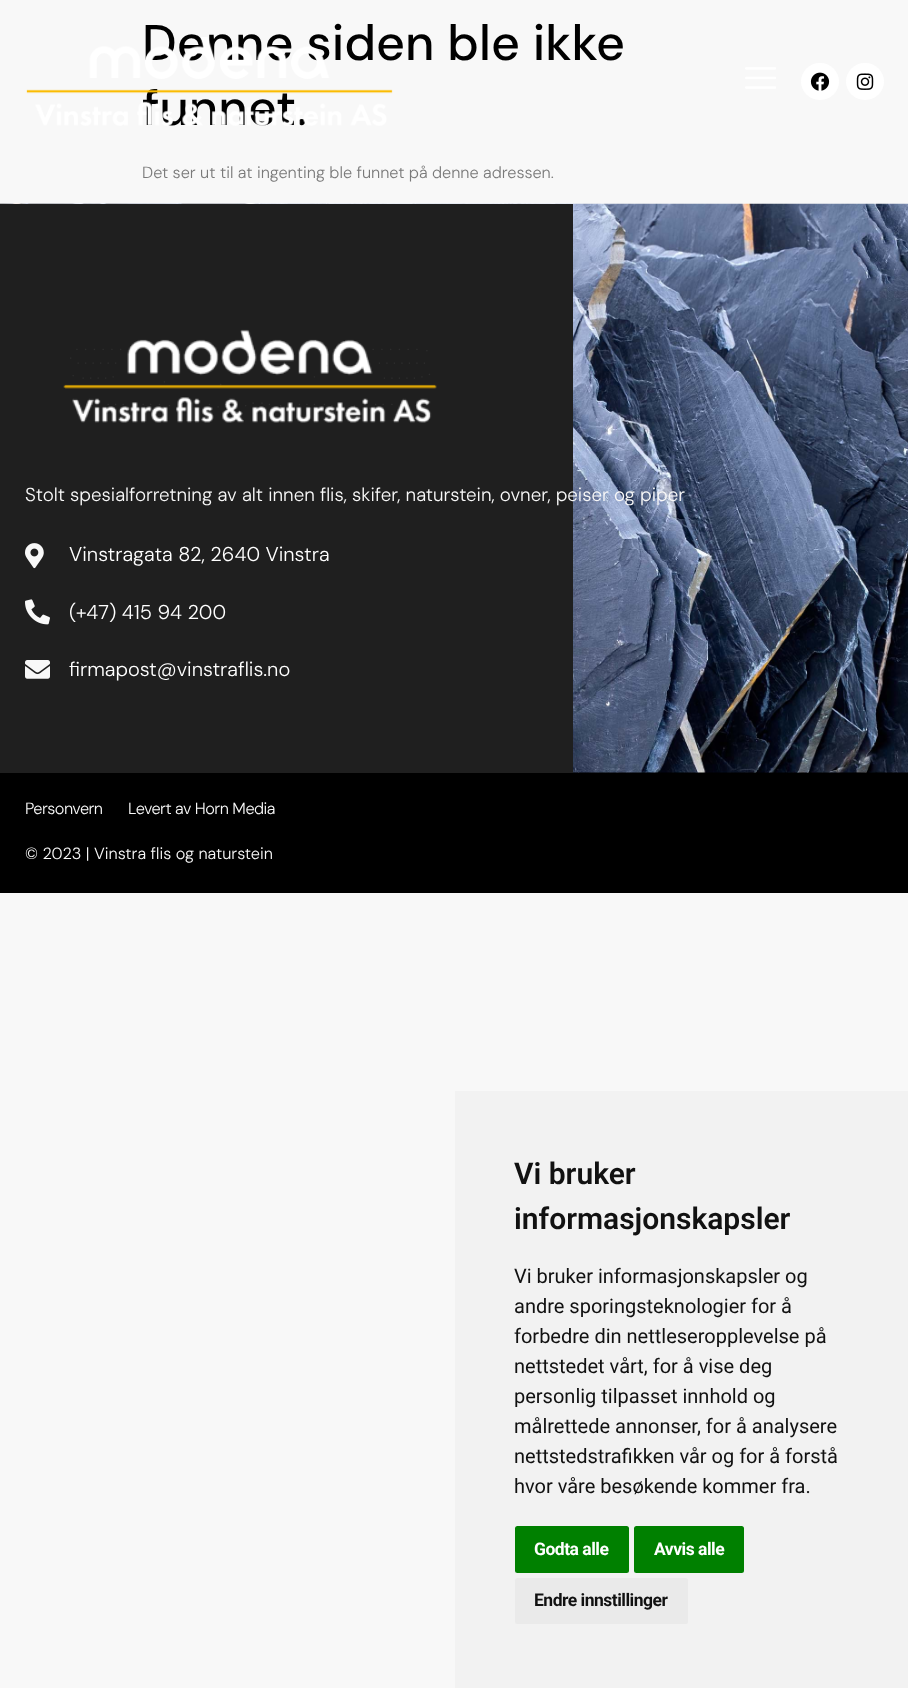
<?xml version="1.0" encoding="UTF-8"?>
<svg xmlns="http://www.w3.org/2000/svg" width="908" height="1688">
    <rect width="100%" height="100%" fill="#F8F8F8"/>
    <text font-family="DM Sans" font-size="50" font-weight="500" fill="#000000">
        <tspan x="142" y="60">Denne siden ble ikke</tspan>
        <tspan x="142" y="125">funnet.</tspan>
    </text>
    <text x="142" y="178" font-family="DM Sans" font-size="16.25" font-weight="300" fill="#7A7A7A">Det ser ut til at ingenting ble funnet på denne adressen.</text>
    <image x="26" y="37" width="367" height="89" href="img_01.png"/>
    <image x="745" y="67" width="31" height="22" href="img_02.png"/>
    <rect x="801" y="63" width="38" height="37" rx="18.5" fill="#FFFFFF"/>
    <image x="810" y="72" width="20" height="19" href="img_03.png"/>
    <rect x="846" y="63" width="38" height="37" rx="18.5" fill="#FFFFFF"/>
    <image x="856" y="73" width="18" height="17" href="img_04.png"/>
    <rect x="573" y="772" width="335" height="1" fill="#000000"/>
    <image x="0" y="203" width="908" height="570" href="img_05.png"/>
    <rect x="0" y="204" width="573" height="569" fill="#1F1F1F"/>
    <image x="63" y="329" width="374" height="94" href="img_06.png"/>
    <text x="25" y="501" font-family="DM Sans" font-size="18.75" font-weight="300" fill="#F8F8F8">Stolt spesialforretning av alt innen flis, skifer, naturstein, ovner, peiser og piper</text>
    <image x="25" y="543" width="19" height="26" href="img_07.png"/>
    <text x="69" y="561" font-family="DM Sans" font-size="20" font-weight="300" fill="#FFFFFF">Vinstragata 82, 2640 Vinstra</text>
    <image x="25" y="599" width="25" height="26" href="img_08.png"/>
    <text x="69" y="619" font-family="DM Sans" font-size="20" font-weight="300" fill="#FFFFFF">(+47) 415 94 200</text>
    <image x="25" y="660" width="25" height="19" href="img_09.png"/>
    <text x="69" y="676" font-family="DM Sans" font-size="20" font-weight="300" fill="#FFFFFF">firmapost@vinstraflis.no</text>
    <rect x="0" y="773" width="908" height="120" fill="#000000"/>
    <text x="25" y="814" font-family="DM Sans" font-size="16.25" font-weight="300" letter-spacing="-0.5" fill="#F8F8F8">Personvern</text>
    <text x="128" y="814" font-family="DM Sans" font-size="16.25" font-weight="300" letter-spacing="-0.5" fill="#F8F8F8">Levert av Horn Media</text>
    <text x="25" y="859" font-family="DM Sans" font-size="16.25" font-weight="300" fill="#F8F8F8">© 2023 | Vinstra flis og naturstein</text>
    <rect x="455" y="1091" width="453" height="597" fill="#F2F2F2"/>
    <text font-family="Roboto" font-size="30" font-weight="600" fill="#111111">
        <tspan x="514" y="1184">Vi bruker</tspan>
        <tspan x="514" y="1229">informasjonskapsler</tspan>
    </text>
    <text font-family="Roboto" font-size="20" fill="#111111">
        <tspan x="514" y="1283">Vi bruker informasjonskapsler og</tspan>
        <tspan x="514" y="1313">andre sporingsteknologier for å</tspan>
        <tspan x="514" y="1343">forbedre din nettleseropplevelse på</tspan>
        <tspan x="514" y="1373">nettstedet vårt, for å vise deg</tspan>
        <tspan x="514" y="1403">personlig tilpasset innhold og</tspan>
        <tspan x="514" y="1433">målrettede annonser, for å analysere</tspan>
        <tspan x="514" y="1463">nettstedstrafikken vår og for å forstå</tspan>
        <tspan x="514" y="1493">hvor våre besøkende kommer fra.</tspan>
    </text>
    <rect x="515" y="1526" width="114" height="47" rx="2.5" fill="#008000"/>
    <text x="534" y="1555" font-family="Roboto" font-size="17.5" font-weight="700" letter-spacing="-0.5" fill="#FFFFFF">Godta alle</text>
    <rect x="634" y="1526" width="110" height="47" rx="2.5" fill="#008000"/>
    <text x="654" y="1555" font-family="Roboto" font-size="17.5" font-weight="700" letter-spacing="-0.5" fill="#FFFFFF">Avvis alle</text>
    <rect x="515" y="1578" width="173" height="46" rx="2.5" fill="#EAEAEA"/>
    <text x="534" y="1606" font-family="Roboto" font-size="17.5" font-weight="700" letter-spacing="-0.5" fill="#111111">Endre innstillinger</text>
</svg>
